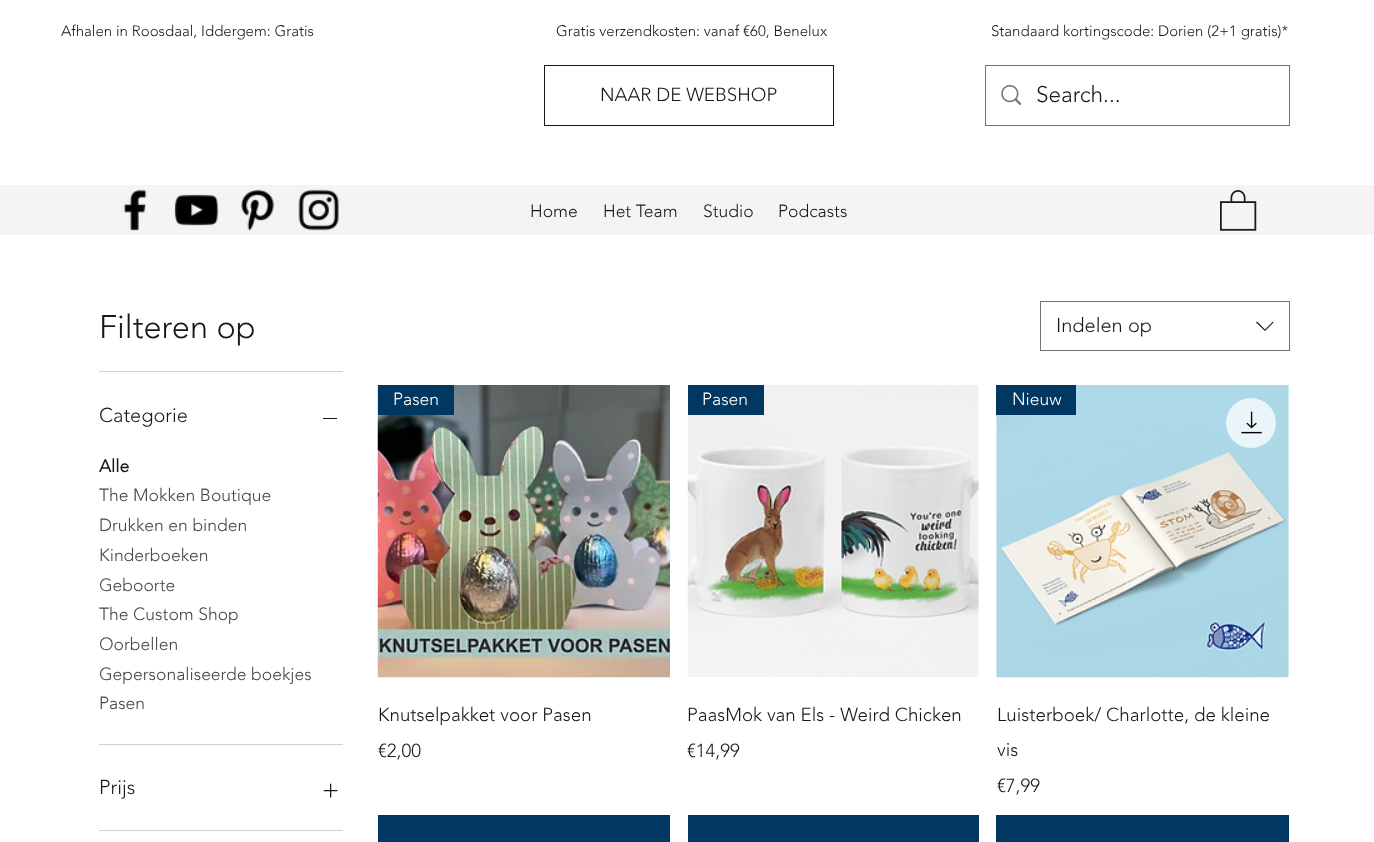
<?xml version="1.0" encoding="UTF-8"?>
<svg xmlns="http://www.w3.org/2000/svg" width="1374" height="842">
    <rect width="100%" height="100%" fill="#FFFFFF"/>
    <text x="61" y="36" font-family="'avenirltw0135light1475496'" font-size="15" font-weight="300" fill="#181818">Afhalen in Roosdaal, Iddergem: Gratis</text>
    <text x="556" y="36" font-family="'avenirltw0135light1475496'" font-size="15" font-weight="300" fill="#181818">Gratis verzendkosten: vanaf €60, Benelux</text>
    <text x="991" y="36" font-family="'avenirltw0135light1475496'" font-size="15" font-weight="300" fill="#181818">Standaard kortingscode: Dorien (2+1 gratis)*</text>
    <rect x="544.5" y="65.5" width="289" height="60" fill="none" stroke="#181818"/>
    <text x="600" y="101" font-family="'avenirltw0135light1475496'" font-size="18.75" font-weight="300" fill="#181818">NAAR DE WEBSHOP</text>
    <rect x="985.5" y="65.5" width="304" height="60" fill="none" stroke="#747474"/>
    <image x="1001" y="85" width="20" height="20" href="img_01.png"/>
    <text x="1036" y="102" font-family="'avenirltw0135light1475496'" font-size="22.5" font-weight="300" fill="#181818">Search...</text>
    <rect x="0" y="185" width="1374" height="50" fill="#F4F4F4"/>
    <image x="123" y="189" width="24" height="42" href="img_02.png"/>
    <image x="174" y="194" width="45" height="32" href="img_03.png"/>
    <image x="241" y="189" width="33" height="42" href="img_04.png"/>
    <image x="298" y="189" width="41" height="42" href="img_05.png"/>
    <text x="530" y="217" font-family="'avenirltw0135light1475496'" font-size="17.5" font-weight="300" fill="#181818">Home</text>
    <text x="603" y="217" font-family="'avenirltw0135light1475496'" font-size="17.5" font-weight="300" fill="#181818">Het Team</text>
    <text x="703" y="217" font-family="'avenirltw0135light1475496'" font-size="17.5" font-weight="300" fill="#181818">Studio</text>
    <text x="778" y="217" font-family="'avenirltw0135light1475496'" font-size="17.5" font-weight="300" fill="#181818">Podcasts</text>
    <image x="1220" y="190" width="37" height="41" href="img_06.png"/>
    <rect x="99" y="371" width="244" height="1" fill="#D1D1D1"/>
    <text x="99" y="338" font-family="'avenirltw0135light1475496'" font-size="32.5" font-weight="300" fill="#181818">Filteren op</text>
    <rect x="99" y="744" width="244" height="1" fill="#D1D1D1"/>
    <text x="99" y="422" font-family="'avenirltw0135light1475496'" font-size="20" font-weight="300" fill="#181818">Categorie</text>
    <rect x="323" y="418" width="14" height="1" fill="#181818"/>
    <text x="99" y="472" font-family="'avenirltw0135light1475496'" font-size="17.5" font-weight="700" fill="#181818">Alle</text>
    <text font-family="'avenirltw0135light1475496'" font-size="17.5" font-weight="300" fill="#464646">
        <tspan x="99" y="501">The Mokken Boutique</tspan>
        <tspan x="99" y="531">Drukken en binden</tspan>
        <tspan x="99" y="561">Kinderboeken</tspan>
        <tspan x="99" y="591">Geboorte</tspan>
        <tspan x="99" y="620">The Custom Shop</tspan>
        <tspan x="99" y="650">Oorbellen</tspan>
        <tspan x="99" y="680">Gepersonaliseerde boekjes</tspan>
        <tspan x="99" y="709">Pasen</tspan>
    </text>
    <rect x="99" y="830" width="244" height="1" fill="#D1D1D1"/>
    <text x="99" y="794" font-family="'avenirltw0135light1475496'" font-size="20" font-weight="300" fill="#181818">Prijs</text>
    <image x="323" y="783" width="15" height="15" href="img_07.png"/>
    <rect x="1040.5" y="301.5" width="249" height="49" fill="none" stroke="#747474"/>
    <text x="1056" y="332" font-family="'avenirltw0135light1475496'" font-size="20" font-weight="300" fill="#181818">Indelen op</text>
    <path d="M 1273 321.5 L 1273.5 322.5 L 1265 331 L 1256 322.5 L 1257 321.5 L 1265 329.5 Z" fill="#181818" fill-rule="evenodd"/>
    <image x="377" y="385" width="293" height="293" href="img_08.png"/>
    <rect x="378" y="385" width="76" height="30" fill="#003862"/>
    <text x="393" y="405" font-family="'avenirltw0135light1475496'" font-size="17.5" font-weight="300" fill="#FFFFFF">Pasen</text>
    <text font-family="'avenirltw0135light1475496'" font-size="18.75" font-weight="300" fill="#181818">
        <tspan x="378" y="721">Knutselpakket voor Pasen</tspan>
        <tspan x="378" y="757">€2,00</tspan>
    </text>
    <rect x="378" y="815" width="292" height="27" fill="#003862"/>
    <image x="687" y="385" width="292" height="292" href="img_09.png"/>
    <rect x="688" y="385" width="76" height="30" fill="#003862"/>
    <text x="702" y="405" font-family="'avenirltw0135light1475496'" font-size="17.5" font-weight="300" fill="#FFFFFF">Pasen</text>
    <text font-family="'avenirltw0135light1475496'" font-size="18.75" font-weight="300" fill="#181818">
        <tspan x="687" y="721">PaasMok van Els - Weird Chicken</tspan>
        <tspan x="687" y="757">€14,99</tspan>
    </text>
    <rect x="688" y="815" width="291" height="27" fill="#003862"/>
    <image x="996" y="385" width="293" height="293" href="img_10.png"/>
    <circle cx="1251" cy="423" r="25" fill="#FFFFFF" fill-opacity="0.75"/>
    <image x="1241" y="411" width="21" height="23" href="img_11.png"/>
    <rect x="996" y="385" width="80" height="30" fill="#003862"/>
    <text x="1012" y="405" font-family="'avenirltw0135light1475496'" font-size="17.5" font-weight="300" fill="#FFFFFF">Nieuw</text>
    <text font-family="'avenirltw0135light1475496'" font-size="18.75" font-weight="300" fill="#181818">
        <tspan x="997" y="721">Luisterboek/ Charlotte, de kleine</tspan>
        <tspan x="997" y="756">vis</tspan>
        <tspan x="997" y="792">€7,99</tspan>
    </text>
    <rect x="996" y="815" width="293" height="27" fill="#003862"/>
</svg>
